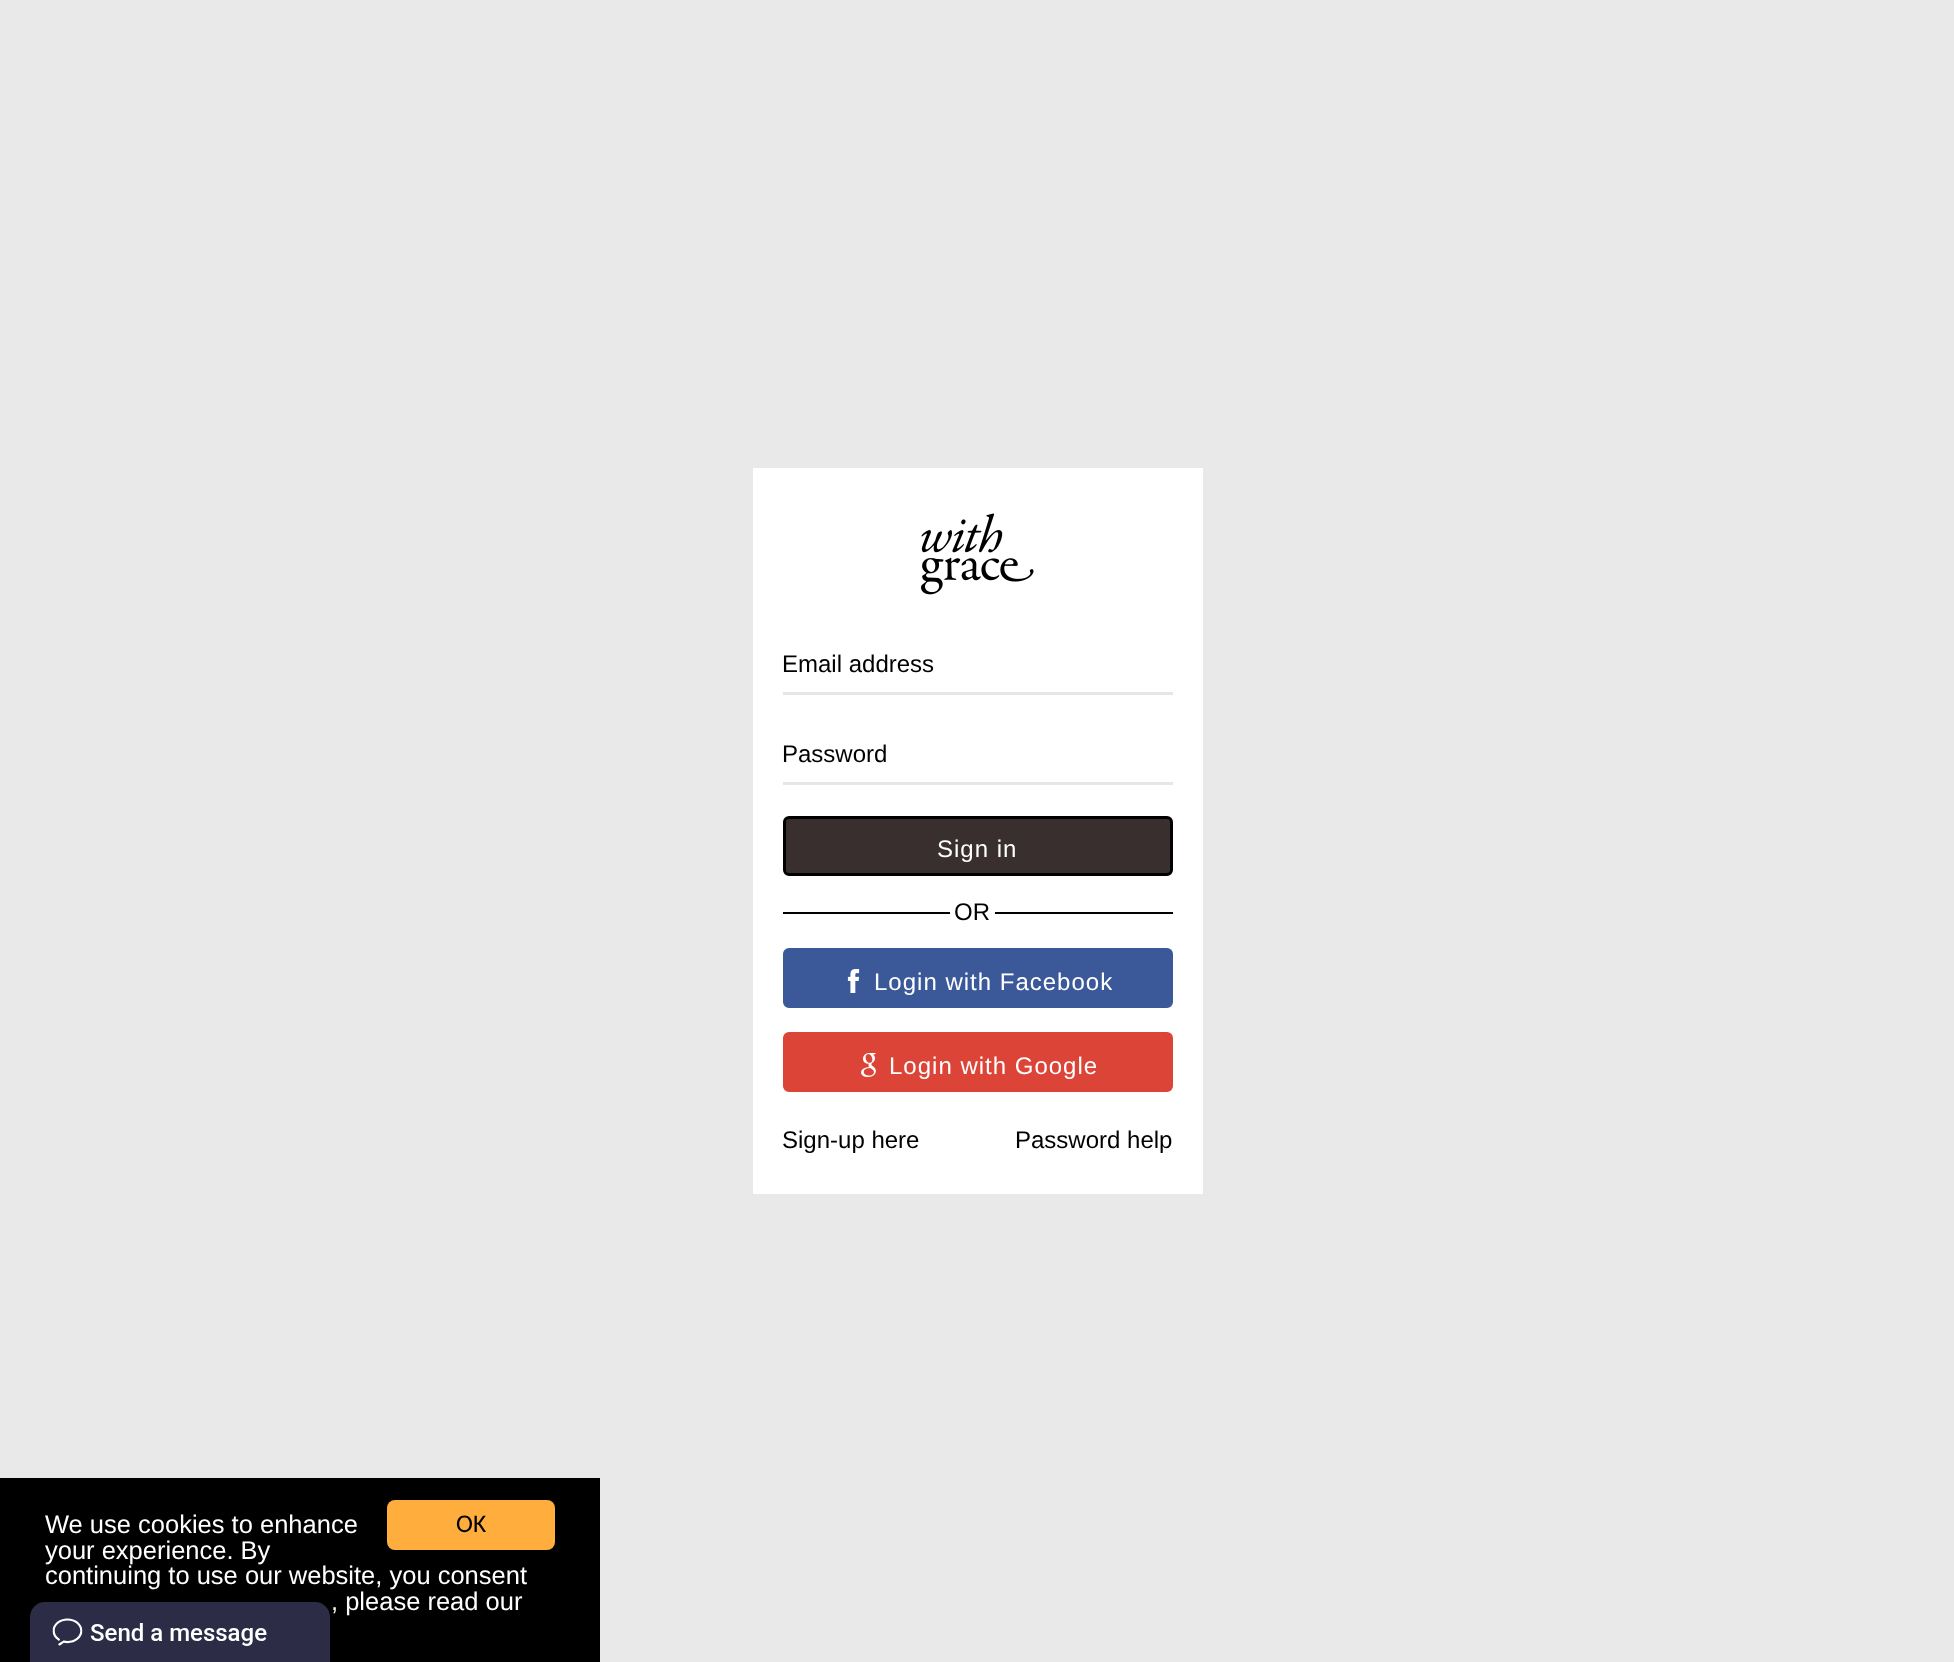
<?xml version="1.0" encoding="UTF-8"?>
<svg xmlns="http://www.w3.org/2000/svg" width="1954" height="1662">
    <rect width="100%" height="100%" fill="#E9E9E9"/>
    <rect x="753" y="468" width="450" height="726" fill="#FFFFFF"/>
    <image x="921" y="513" width="113" height="82" href="img_01.png"/>
    <text x="782" y="672" font-family="Liberation Sans" font-size="24" fill="#000000">Email address</text>
    <rect x="783" y="692" width="390" height="3" fill="#E8E6E4"/>
    <text x="782" y="762" font-family="Liberation Sans" font-size="24" fill="#000000">Password</text>
    <rect x="783" y="782" width="390" height="3" fill="#E8E6E4"/>
    <rect x="784.5" y="817.5" width="387" height="57" rx="4.5" fill="#382F2E" stroke="#000000" stroke-width="3"/>
    <text x="937" y="857" font-family="Liberation Sans" font-size="24" letter-spacing="1" fill="#FFFFFF">Sign in</text>
    <rect x="783" y="912" width="390" height="2" fill="#000000"/>
    <rect x="950" y="912" width="45" height="2" fill="#FFFFFF"/>
    <text x="954" y="920" font-family="Liberation Sans" font-size="24" fill="#000000">OR</text>
    <rect x="784.5" y="949.5" width="387" height="57" rx="4.5" fill="#3B5998" stroke="#3B5998" stroke-width="3"/>
    <image x="847" y="969" width="13" height="24" href="img_02.png"/>
    <text x="874" y="990" font-family="Liberation Sans" font-size="24" letter-spacing="1" fill="#FFFFFF">Login with Facebook</text>
    <rect x="784.5" y="1033.5" width="387" height="57" rx="4.5" fill="#DB4437" stroke="#DB4437" stroke-width="3"/>
    <image x="861" y="1053" width="15" height="24" href="img_03.png"/>
    <text x="889" y="1074" font-family="Liberation Sans" font-size="24" letter-spacing="1" fill="#FFFFFF">Login with Google</text>
    <text x="782" y="1148" font-family="Liberation Sans" font-size="24" fill="#000000">Sign-up here</text>
    <text x="1015" y="1148" font-family="Liberation Sans" font-size="24" fill="#000000">Password help</text>
    <rect x="0" y="1478" width="600" height="184" fill="#000000"/>
    <text font-family="Liberation Sans" font-size="25.5" fill="#FFFFFF">
        <tspan x="45" y="1533">We use cookies to enhance</tspan>
        <tspan x="45" y="1559">your experience. By</tspan>
        <tspan x="45" y="1584">continuing to use our website, you consent</tspan>
    </text>
    <text x="331" y="1610" font-family="Liberation Sans" font-size="25.5" fill="#FFFFFF">, please read our</text>
    <rect x="387" y="1500" width="168" height="50" rx="8" fill="#FFAE3D"/>
    <text x="456" y="1532" font-family="Carlito" font-size="25.5" fill="#000000">OK</text>
    <image x="30" y="1584" width="324" height="78" href="img_04.png"/>
</svg>
